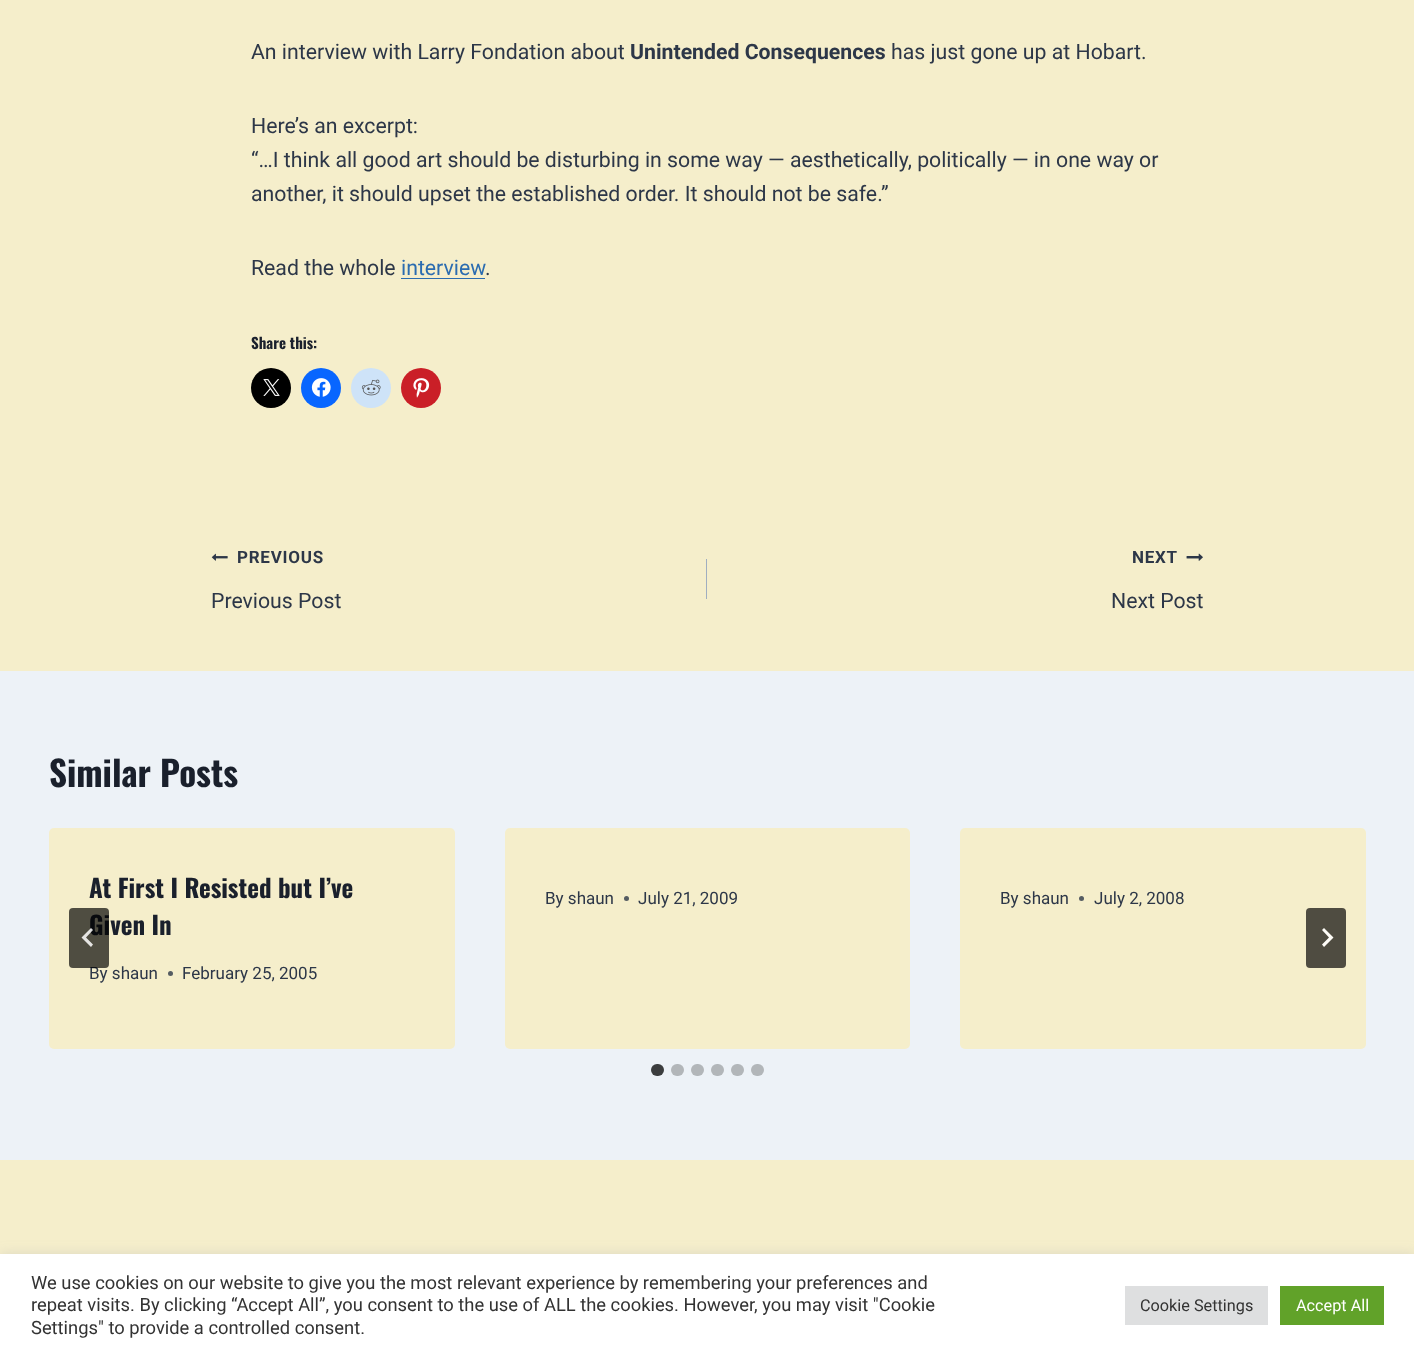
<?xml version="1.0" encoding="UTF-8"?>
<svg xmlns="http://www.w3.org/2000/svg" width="1414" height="1356">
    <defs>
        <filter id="blur1" x="-50%" y="-200%" width="200%" height="500%"><feGaussianBlur stdDeviation="6"/></filter>
    </defs>
    <rect width="100%" height="100%" fill="#F5EECB"/>
    <text x="251" y="59" font-family="Roboto" font-size="21.25" fill="#2D3748">An interview with Larry Fondation about</text>
    <text x="630" y="59" font-family="Roboto" font-size="21.25" font-weight="700" fill="#2D3748">Unintended Consequences</text>
    <text x="891" y="59" font-family="Roboto" font-size="21.25" fill="#2D3748">has just gone up at Hobart.</text>
    <text font-family="Roboto" font-size="21.25" fill="#2D3748">
        <tspan x="251" y="133">Here’s an excerpt:</tspan>
        <tspan x="251" y="167">“…I think all good art should be disturbing in some way — aesthetically, politically — in one way or</tspan>
        <tspan x="251" y="201">another, it should upset the established order. It should not be safe.”</tspan>
    </text>
    <text x="251" y="275" font-family="Roboto" font-size="21.25" fill="#2D3748">Read the whole</text>
    <text x="401" y="275" font-family="Roboto" font-size="21.25" fill="#2B6CB0">interview</text>
    <rect x="401" y="278" width="84" height="1" fill="#2B6CB0"/>
    <text x="485" y="275" font-family="Roboto" font-size="21.25" fill="#2D3748">.</text>
    <text x="251" y="349" font-family="Oswald" font-size="15" font-weight="700" fill="#1A202C">Share this:</text>
    <circle cx="271" cy="388" r="20" fill="#000000"/>
    <image x="263" y="379" width="17" height="17" href="img_01.png"/>
    <circle cx="321" cy="388" r="20" fill="#0866FF"/>
    <image x="311" y="378" width="20" height="19" href="img_02.png"/>
    <circle cx="371" cy="388" r="20" fill="#CEE3F8"/>
    <image x="361" y="379" width="20" height="17" href="img_03.png"/>
    <circle cx="421" cy="388" r="20" fill="#CA1F27"/>
    <image x="413" y="378" width="17" height="20" href="img_04.png"/>
    <image x="211" y="553" width="17" height="8" href="img_05.png"/>
    <text x="237" y="563" font-family="Roboto" font-size="17" font-weight="700" letter-spacing="0.75" fill="#2D3748">PREVIOUS</text>
    <text x="211" y="608" font-family="Roboto" font-size="21.25" fill="#2D3748">Previous Post</text>
    <rect x="706" y="559" width="1" height="40" fill="#A0AEC0"/>
    <text x="1132" y="563" font-family="Roboto" font-size="17" font-weight="700" letter-spacing="0.75" fill="#2D3748">NEXT</text>
    <image x="1186" y="553" width="17" height="8" href="img_06.png"/>
    <text x="1111" y="608" font-family="Roboto" font-size="21.25" fill="#2D3748">Next Post</text>
    <rect x="0" y="671" width="1414" height="489" fill="#EDF2F7"/>
    <text x="49" y="787" font-family="Oswald" font-size="35" font-weight="700" fill="#1A202C">Similar Posts</text>
    <rect x="49" y="828" width="406" height="221" rx="5" fill="#F5EECB"/>
    <text font-family="Oswald" font-size="25" font-weight="700" fill="#1A202C">
        <tspan x="89" y="898">At First I Resisted but I’ve</tspan>
        <tspan x="89" y="935">Given In</tspan>
    </text>
    <text x="89" y="979" font-family="Roboto" font-size="17" fill="#2D3748">By shaun</text>
    <circle cx="170.5" cy="973.5" r="2.5" fill="#555C62"/>
    <text x="182" y="979" font-family="Roboto" font-size="17" fill="#2D3748">February 25, 2005</text>
    <rect x="505" y="828" width="405" height="221" rx="5" fill="#F5EECB"/>
    <text x="545" y="904" font-family="Roboto" font-size="17" fill="#2D3748">By shaun</text>
    <circle cx="626.5" cy="898.5" r="2.5" fill="#555C62"/>
    <text x="638" y="904" font-family="Roboto" font-size="17" fill="#2D3748">July 21, 2009</text>
    <rect x="960" y="828" width="406" height="221" rx="5" fill="#F5EECB"/>
    <text x="1000" y="904" font-family="Roboto" font-size="17" fill="#2D3748">By shaun</text>
    <circle cx="1081.5" cy="898.5" r="2.5" fill="#555C62"/>
    <text x="1094" y="904" font-family="Roboto" font-size="17" fill="#2D3748">July 2, 2008</text>
    <rect x="69" y="908" width="40" height="60" rx="4" fill="#000000" fill-opacity="0.68"/>
    <path d="M 91 928 L 93 930 L 86 937.5 L 93 944.5 L 91 947 L 81.5 937.5 Z" fill="#FFFFFF" fill-opacity="0.85"/>
    <rect x="1306" y="908" width="40" height="60" rx="4" fill="#4F4C41"/>
    <path d="M 1324 928 L 1322 930 L 1329 937.5 L 1322 944.5 L 1324 947 L 1333.5 937.5 Z" fill="#FEFCF7"/>
    <rect x="651" y="1064" width="13" height="12" rx="6" fill="#3B3D3E"/>
    <rect x="671" y="1064" width="13" height="12" rx="6" fill="#B2B6B9"/>
    <rect x="691" y="1064" width="13" height="12" rx="6" fill="#B2B6B9"/>
    <rect x="711" y="1064" width="13" height="12" rx="6" fill="#B2B6B9"/>
    <rect x="731" y="1064" width="13" height="12" rx="6" fill="#B2B6B9"/>
    <rect x="751" y="1064" width="13" height="12" rx="6" fill="#B2B6B9"/>
    <rect x="0" y="1253" width="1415" height="102" fill="#ACABAB" fill-opacity="0.3" filter="url(#blur1)"/>
    <rect x="0" y="1254" width="1414" height="102" fill="#FFFFFF"/>
    <text font-family="Roboto" font-size="18.35" fill="#333333">
        <tspan x="31" y="1289">We use cookies on our website to give you the most relevant experience by remembering your preferences and</tspan>
        <tspan x="31" y="1311">repeat visits. By clicking “Accept All”, you consent to the use of ALL the cookies. However, you may visit "Cookie</tspan>
        <tspan x="31" y="1334">Settings" to provide a controlled consent.</tspan>
    </text>
    <rect x="1125" y="1286" width="143" height="39" fill="#DEDFE0"/>
    <text x="1140" y="1311" font-family="Roboto" font-size="16.25" fill="#333333">Cookie Settings</text>
    <rect x="1280" y="1286" width="104" height="39" fill="#61A229"/>
    <text x="1296" y="1311" font-family="Roboto" font-size="16.25" fill="#FFFFFF">Accept All</text>
</svg>
